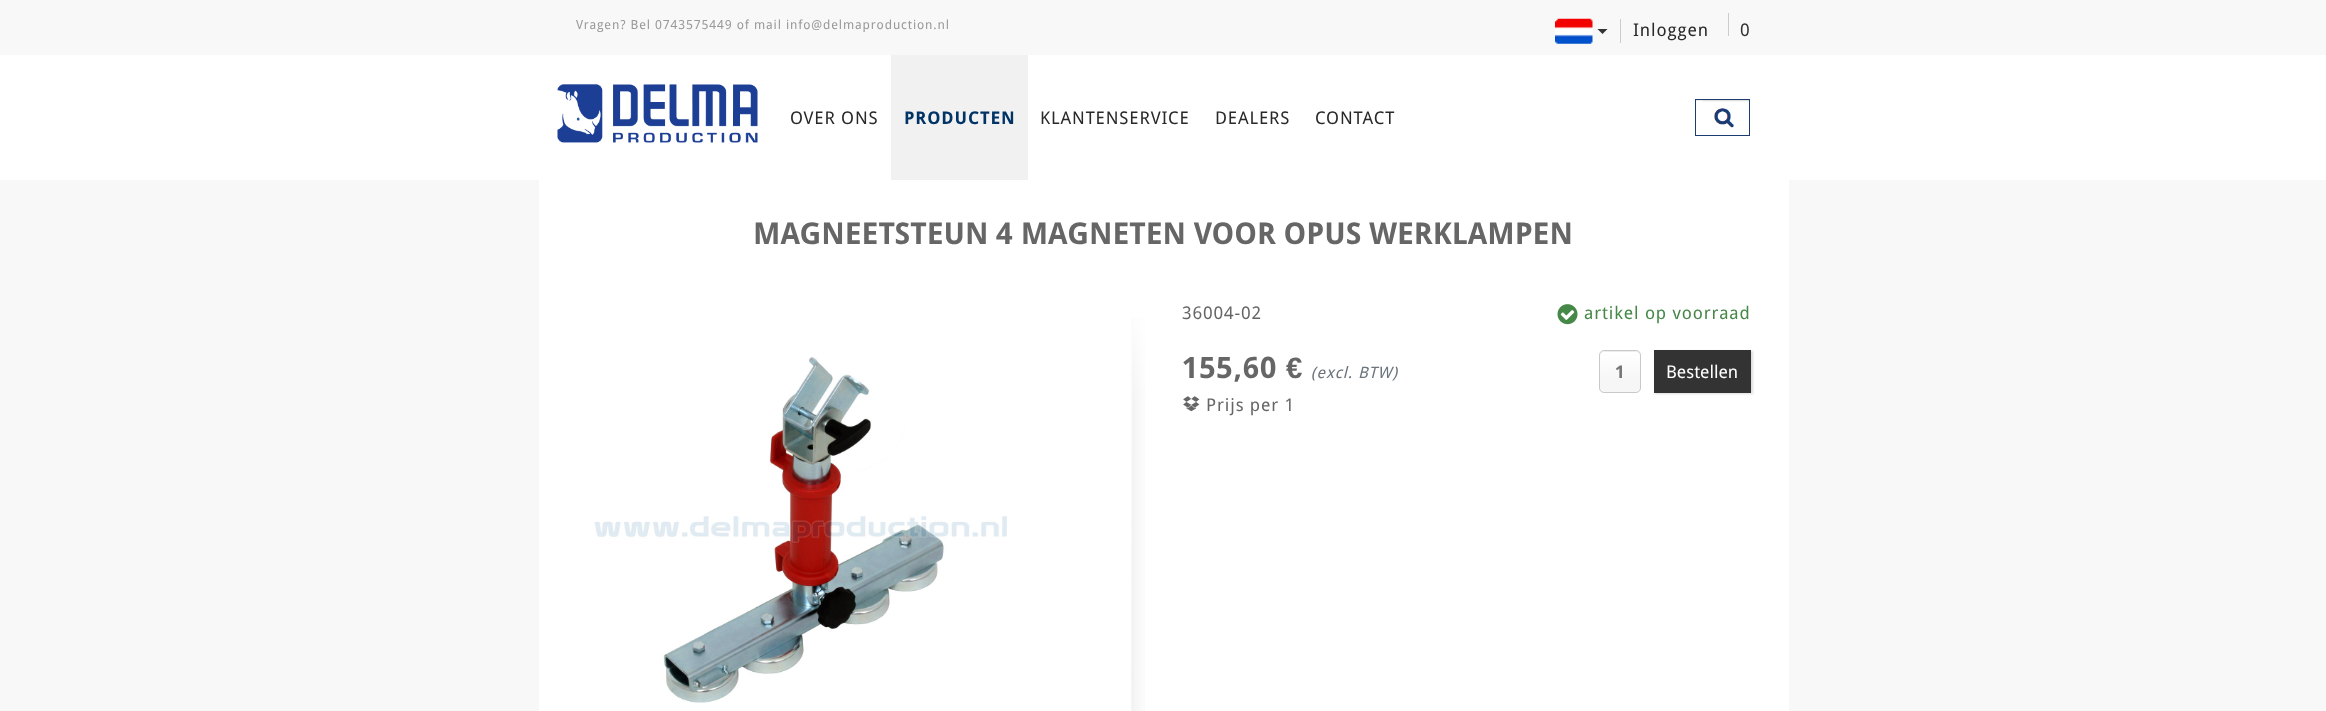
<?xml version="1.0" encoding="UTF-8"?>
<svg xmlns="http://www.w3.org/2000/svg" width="2326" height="711">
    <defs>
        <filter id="blur1" x="-50%" y="-200%" width="200%" height="500%"><feGaussianBlur stdDeviation="1"/></filter>
    </defs>
    <rect width="100%" height="100%" fill="#F8F8F8"/>
    <text x="576" y="29" font-family="Droid Sans" font-size="12.5" letter-spacing="0.88" fill="#999999">Vragen? Bel 0743575449 of mail info@delmaproduction.nl</text>
    <rect x="1620" y="19" width="1" height="24" fill="#CCCCCC"/>
    <image x="1555" y="18" width="38" height="26" href="img_01.png"/>
    <path d="M 1597.5 29 H 1607.5 L 1602.5 34 Z" fill="#333333"/>
    <rect x="1728" y="13" width="1" height="23" fill="#CCCCCC"/>
    <text x="1633" y="36" font-family="Droid Sans" font-size="17.5" letter-spacing="0.88" fill="#292929">Inloggen</text>
    <text x="1740" y="36" font-family="Droid Sans" font-size="17.5" letter-spacing="0.88" fill="#333333">0</text>
    <rect x="0" y="55" width="2326" height="125" fill="#FFFFFF"/>
    <image x="557" y="84" width="201" height="59" href="img_02.png"/>
    <text x="790" y="124" font-family="Droid Sans" font-size="17.5" letter-spacing="0.88" fill="#292929">OVER ONS</text>
    <rect x="891" y="55" width="137" height="125" fill="#F1F1F1"/>
    <text x="904" y="124" font-family="Droid Sans" font-size="17.5" font-weight="700" letter-spacing="0.88" fill="#003366">PRODUCTEN</text>
    <text x="1040" y="124" font-family="Droid Sans" font-size="17.5" letter-spacing="0.88" fill="#292929">KLANTENSERVICE</text>
    <text x="1215" y="124" font-family="Droid Sans" font-size="17.5" letter-spacing="0.88" fill="#292929">DEALERS</text>
    <text x="1315" y="124" font-family="Droid Sans" font-size="17.5" letter-spacing="0.88" fill="#292929">CONTACT</text>
    <image x="1702" y="100" width="47" height="35" href="img_03.png"/>
    <rect x="1696" y="100" width="53" height="1" fill="#000000" fill-opacity="0.07"/>
    <rect x="1695.5" y="99.5" width="54" height="36" fill="none" stroke="#1D3C72"/>
    <rect x="539" y="180" width="1250" height="531" fill="#FFFFFF"/>
    <text x="753" y="244" font-family="Droid Sans" font-size="30" font-weight="700" fill="#666666">MAGNEETSTEUN 4 MAGNETEN VOOR OPUS WERKLAMPEN</text>
    <image x="1131" y="318" width="14" height="393" href="img_04.png"/>
    <image x="594" y="357" width="413" height="346" href="img_05.png"/>
    <text x="1182" y="319" font-family="Droid Sans" font-size="17.5" letter-spacing="0.88" fill="#666666">36004-02</text>
    <image x="1557" y="304" width="21" height="21" href="img_06.png"/>
    <text x="1584" y="319" font-family="Droid Sans" font-size="17.5" letter-spacing="0.88" fill="#468847">artikel op voorraad</text>
    <text x="1182" y="378" font-family="Droid Sans" font-size="29.5" font-weight="700" letter-spacing="0.88" fill="#666666">155,60</text>
    <text x="1286" y="378" font-family="Liberation Sans" font-size="29.5" font-weight="700" letter-spacing="0.88" fill="#666666">€</text>
    <text x="1311" y="378" font-family="Droid Sans" font-size="15.75" font-style="italic" letter-spacing="0.88" fill="#6C757D">(excl. BTW)</text>
    <image x="1183" y="396" width="17" height="16" href="img_07.png"/>
    <text x="1206" y="411" font-family="Droid Sans" font-size="17.5" letter-spacing="0.88" fill="#666666">Prijs per 1</text>
    <image x="1599" y="351" width="42" height="41" href="img_08.png"/>
    <path d="M 1604 352 H 1636 C 1638 352 1640 354 1640 356 C 1640 350 1635 351 1631 351 H 1609 C 1605 351 1600 350 1600 356 C 1600 354 1602 352 1604 352 Z" fill="#000000" fill-opacity="0.07"/>
    <rect x="1599.5" y="350.5" width="41" height="42" rx="4.5" fill="none" stroke="#CAC9C9"/>
    <text x="1615" y="378" font-family="Droid Sans" font-size="17.5" font-weight="700" fill="#777777">1</text>
    <rect x="1655" y="351" width="98" height="43" fill="#DDDDDD" filter="url(#blur1)"/>
    <rect x="1654" y="350" width="97" height="43" fill="#333333"/>
    <text x="1666" y="378" font-family="Droid Sans" font-size="17.5" fill="#FFFFFF">Bestellen</text>
</svg>
